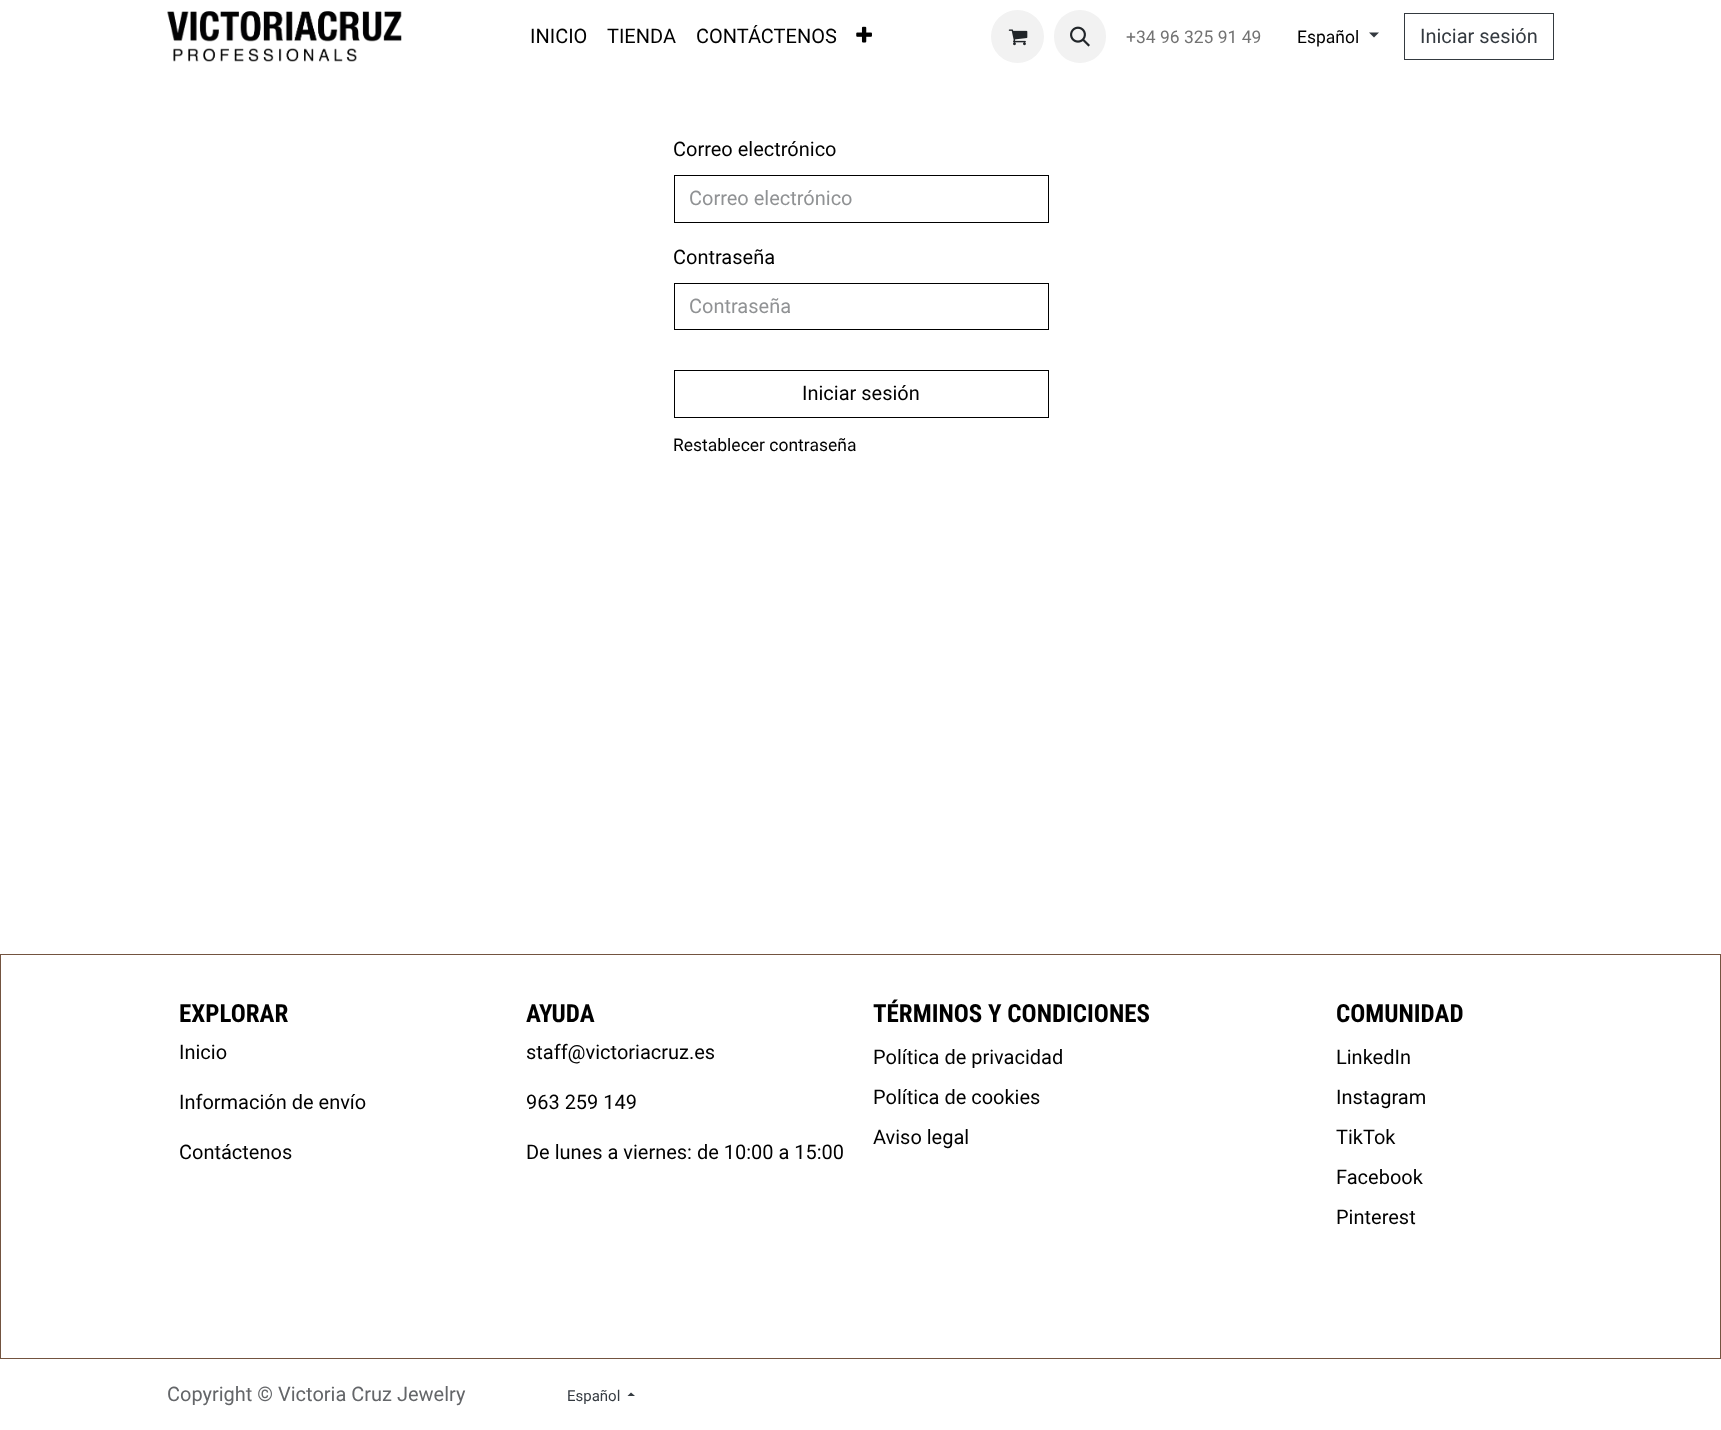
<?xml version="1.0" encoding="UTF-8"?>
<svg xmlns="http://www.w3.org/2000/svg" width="1721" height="1430">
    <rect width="100%" height="100%" fill="#FFFFFF"/>
    <image x="167" y="11" width="235" height="51" href="img_01.png"/>
    <text x="530" y="43" font-family="Roboto" font-size="20" fill="#000000">INICIO</text>
    <text x="607" y="43" font-family="Roboto" font-size="20" fill="#000000">TIENDA</text>
    <text x="696" y="43" font-family="Roboto" font-size="20" fill="#000000">CONTÁCTENOS</text>
    <image x="856" y="26" width="16" height="17" href="img_02.png"/>
    <circle cx="1017.5" cy="36.5" r="26.5" fill="#F2F2F2"/>
    <image x="1008" y="29" width="20" height="17" href="img_03.png"/>
    <rect x="1054" y="10" width="52" height="53" rx="26" fill="#F2F2F2"/>
    <image x="1070" y="26" width="20" height="21" href="img_04.png"/>
    <text x="1126" y="43" font-family="Roboto" font-size="17.5" fill="#737373">+34 96 325 91 49</text>
    <text x="1297" y="43" font-family="Roboto" font-size="17.5" fill="#000000">Español</text>
    <path d="M 1369 32.5 H 1379 L 1374 37.5 Z" fill="#343A40"/>
    <rect x="1404.5" y="13.5" width="149" height="46" fill="none" stroke="#343A40"/>
    <text x="1420" y="43" font-family="Roboto" font-size="20" fill="#343A40">Iniciar sesión</text>
    <text x="673" y="156" font-family="Roboto" font-size="20" fill="#000000">Correo electrónico</text>
    <rect x="674.5" y="175.5" width="374" height="47" fill="none" stroke="#000000"/>
    <text x="689" y="205" font-family="Roboto" font-size="20" fill="#909294">Correo electrónico</text>
    <text x="673" y="264" font-family="Roboto" font-size="20" fill="#000000">Contraseña</text>
    <rect x="674.5" y="283.5" width="374" height="46" fill="none" stroke="#000000"/>
    <text x="689" y="313" font-family="Roboto" font-size="20" fill="#909294">Contraseña</text>
    <rect x="674.5" y="370.5" width="374" height="47" fill="none" stroke="#000000"/>
    <text x="802" y="400" font-family="Roboto" font-size="20" fill="#000000">Iniciar sesión</text>
    <text x="673" y="451" font-family="Roboto" font-size="17.5" fill="#000000">Restablecer contraseña</text>
    <rect x="0.5" y="954.5" width="1720" height="404" fill="none" stroke="#735440"/>
    <text x="179" y="1022" font-family="Roboto Condensed" font-size="25" font-weight="700" fill="#000000">EXPLORAR</text>
    <text x="179" y="1059" font-family="Roboto" font-size="20" fill="#000000">Inicio</text>
    <text x="179" y="1109" font-family="Roboto" font-size="20" fill="#000000">Información de envío</text>
    <text x="179" y="1159" font-family="Roboto" font-size="20" fill="#000000">Contáctenos</text>
    <text x="526" y="1022" font-family="Roboto Condensed" font-size="25" font-weight="700" fill="#000000">AYUDA</text>
    <text x="526" y="1059" font-family="Roboto" font-size="20" fill="#000000">staff@victoriacruz.es</text>
    <text x="526" y="1109" font-family="Roboto" font-size="20" fill="#000000">963 259 149</text>
    <text x="526" y="1159" font-family="Roboto" font-size="20" fill="#000000">De lunes a viernes: de 10:00 a 15:00</text>
    <text x="873" y="1022" font-family="Roboto Condensed" font-size="25" font-weight="700" fill="#000000">TÉRMINOS Y CONDICIONES</text>
    <text x="873" y="1064" font-family="Roboto" font-size="20" fill="#000000">Política de privacidad</text>
    <text x="873" y="1104" font-family="Roboto" font-size="20" fill="#000000">Política de cookies</text>
    <text x="873" y="1144" font-family="Roboto" font-size="20" fill="#000000">Aviso legal</text>
    <text x="1336" y="1022" font-family="Roboto Condensed" font-size="25" font-weight="700" fill="#000000">COMUNIDAD</text>
    <text x="1336" y="1064" font-family="Roboto" font-size="20" fill="#000000">LinkedIn</text>
    <text x="1336" y="1104" font-family="Roboto" font-size="20" fill="#000000">Instagram</text>
    <text x="1336" y="1144" font-family="Roboto" font-size="20" fill="#000000">TikTok</text>
    <text x="1336" y="1184" font-family="Roboto" font-size="20" fill="#000000">Facebook</text>
    <text x="1336" y="1224" font-family="Roboto" font-size="20" fill="#000000">Pinterest</text>
    <text x="167" y="1401" font-family="Roboto" font-size="20" fill="#646669">Copyright © Victoria Cruz Jewelry</text>
    <text x="567" y="1401" font-family="Roboto" font-size="15" fill="#343A40">Español</text>
    <path d="M 635 1396 H 627.5 L 631 1392.5 Z" fill="#343A40"/>
</svg>
